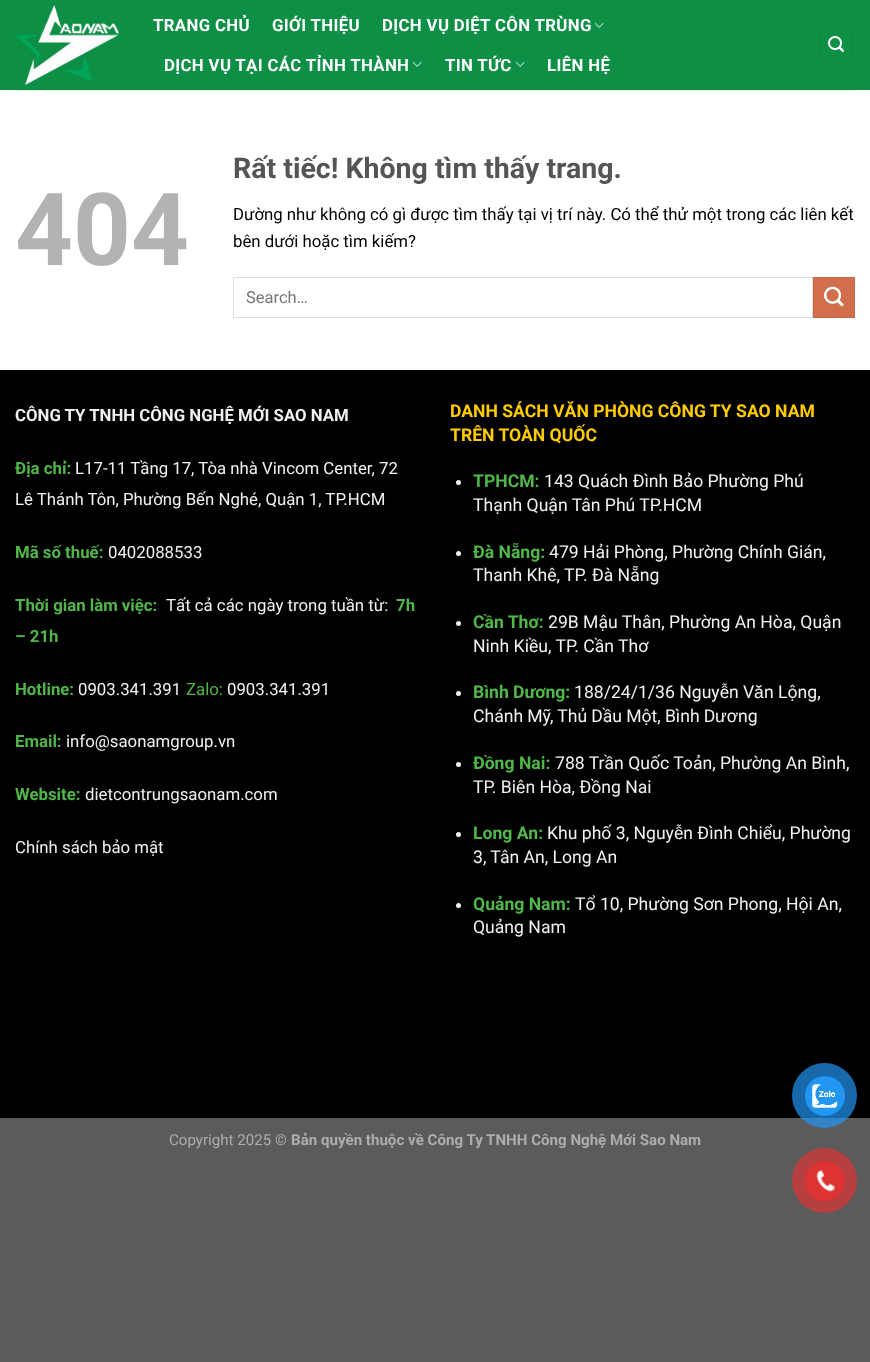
<?xml version="1.0" encoding="UTF-8"?>
<svg xmlns="http://www.w3.org/2000/svg" width="870" height="1362">
    <rect width="100%" height="100%" fill="#5B5B5B"/>
    <rect x="0" y="90" width="870" height="280" fill="#FFFFFF"/>
    <rect x="0" y="0" width="870" height="90" fill="#0D8F46"/>
    <image x="15" y="5" width="104" height="80" href="img_01.png"/>
    <text x="153" y="31" font-family="Roboto" font-size="16.8" font-weight="700" letter-spacing="0.35" fill="#FFFFFF">TRANG CHỦ</text>
    <text x="272" y="31" font-family="Roboto" font-size="16.8" font-weight="700" letter-spacing="0.35" fill="#FFFFFF">GIỚI THIỆU</text>
    <text x="382" y="31" font-family="Roboto" font-size="16.8" font-weight="700" letter-spacing="0.35" fill="#FFFFFF">DỊCH VỤ DIỆT CÔN TRÙNG</text>
    <image x="594" y="22" width="10" height="6" href="img_02.png"/>
    <text x="164" y="71" font-family="Roboto" font-size="16.8" font-weight="700" letter-spacing="0.35" fill="#FFFFFF">DỊCH VỤ TẠI CÁC TỈNH THÀNH</text>
    <image x="412" y="61" width="10" height="6" href="img_02.png"/>
    <text x="445" y="71" font-family="Roboto" font-size="16.8" font-weight="700" letter-spacing="0.35" fill="#FFFFFF">TIN TỨC</text>
    <image x="515" y="61" width="10" height="6" href="img_02.png"/>
    <text x="547" y="71" font-family="Roboto" font-size="16.8" font-weight="700" letter-spacing="0.35" fill="#FFFFFF">LIÊN HỆ</text>
    <rect x="820.5" y="28.5" width="32" height="33" rx="4.5" fill="none" stroke="#0C8843"/>
    <image x="828" y="36" width="16" height="16" href="img_03.png"/>
    <rect x="15" y="90" width="840" height="1" fill="#E6E6E6"/>
    <text x="15" y="265" font-family="Roboto" font-size="101" font-weight="700" fill="#B3B3B3">404</text>
    <text x="233" y="178" font-family="Roboto" font-size="28.5" font-weight="700" fill="#555555">Rất tiếc! Không tìm thấy trang.</text>
    <text font-family="Roboto" font-size="16.8" fill="#000000">
        <tspan x="233" y="220">Dường như không có gì được tìm thấy tại vị trí này. Có thể thử một trong các liên kết</tspan>
        <tspan x="233" y="247">bên dưới hoặc tìm kiếm?</tspan>
    </text>
    <rect x="233.5" y="277.5" width="579" height="40" fill="none" stroke="#DDDDDD"/>
    <text x="246" y="303" font-family="Roboto" font-size="16.5" fill="#757575">Search…</text>
    <rect x="813.5" y="277.5" width="41" height="40" fill="#D26E4B" stroke="#C86947"/>
    <image x="824" y="286" width="20" height="21" href="img_04.png"/>
    <rect x="0" y="370" width="870" height="748" fill="#000000"/>
    <text x="15" y="421" font-family="Roboto" font-size="16.8" font-weight="700" fill="#F1F1F1">CÔNG TY TNHH CÔNG NGHỆ MỚI SAO NAM</text>
    <text x="15" y="474" font-family="Roboto" font-size="16.8" font-weight="700" fill="#50B848">Địa chỉ:</text>
    <text x="75" y="474" font-family="Roboto" font-size="16.8" fill="#F1F1F1">L17-11 Tầng 17, Tòa nhà Vincom Center, 72</text>
    <text x="15" y="505" font-family="Roboto" font-size="16.8" fill="#F1F1F1">Lê Thánh Tôn, Phường Bến Nghé, Quận 1, TP.HCM</text>
    <text x="15" y="558" font-family="Roboto" font-size="16.8" font-weight="700" fill="#50B848">Mã số thuế:</text>
    <text x="108" y="558" font-family="Roboto" font-size="16.8" fill="#F1F1F1">0402088533</text>
    <text x="15" y="611" font-family="Roboto" font-size="16.8" font-weight="700" fill="#50B848">Thời gian làm việc:</text>
    <text x="166" y="611" font-family="Roboto" font-size="16.8" fill="#F1F1F1">Tất cả các ngày trong tuần từ:</text>
    <text x="396" y="611" font-family="Roboto" font-size="16.8" font-weight="700" fill="#50B848">7h</text>
    <text x="15" y="642" font-family="Roboto" font-size="16.8" font-weight="700" fill="#50B848">– 21h</text>
    <text x="15" y="695" font-family="Roboto" font-size="16.8" font-weight="700" fill="#50B848">Hotline:</text>
    <text x="78" y="695" font-family="Roboto" font-size="16.8" fill="#F1F1F1">0903.341.391</text>
    <text x="186" y="695" font-family="Roboto" font-size="16.8" fill="#50B848">Zalo:</text>
    <text x="227" y="695" font-family="Roboto" font-size="16.8" fill="#F1F1F1">0903.341.391</text>
    <text x="15" y="747" font-family="Roboto" font-size="16.8" font-weight="700" fill="#50B848">Email:</text>
    <text x="66" y="747" font-family="Roboto" font-size="16.8" fill="#F1F1F1">info@saonamgroup.vn</text>
    <text x="15" y="800" font-family="Roboto" font-size="16.8" font-weight="700" fill="#50B848">Website:</text>
    <text x="85" y="800" font-family="Roboto" font-size="16.8" fill="#F1F1F1">dietcontrungsaonam.com</text>
    <text x="15" y="853" font-family="Roboto" font-size="16.8" fill="#F1F1F1">Chính sách bảo mật</text>
    <text font-family="Roboto" font-size="17.6" font-weight="700" fill="#FFCC00">
        <tspan x="450" y="417">DANH SÁCH VĂN PHÒNG CÔNG TY SAO NAM</tspan>
        <tspan x="450" y="441">TRÊN TOÀN QUỐC</tspan>
    </text>
    <circle cx="458.5" cy="482.5" r="2.5" fill="#F1F1F1"/>
    <text x="473" y="487" font-family="Roboto" font-size="17.6" font-weight="700" fill="#50B848">TPHCM:</text>
    <text x="544" y="487" font-family="Roboto" font-size="17.6" fill="#F1F1F1">143 Quách Đình Bảo Phường Phú</text>
    <text x="473" y="511" font-family="Roboto" font-size="17.6" fill="#F1F1F1">Thạnh Quận Tân Phú TP.HCM</text>
    <circle cx="458.5" cy="553.5" r="2.5" fill="#F1F1F1"/>
    <text x="473" y="558" font-family="Roboto" font-size="17.6" font-weight="700" fill="#50B848">Đà Nẵng:</text>
    <text x="549" y="558" font-family="Roboto" font-size="17.6" fill="#F1F1F1">479 Hải Phòng, Phường Chính Gián,</text>
    <text x="473" y="581" font-family="Roboto" font-size="17.6" fill="#F1F1F1">Thanh Khê, TP. Đà Nẵng</text>
    <circle cx="458.5" cy="623.5" r="2.5" fill="#F1F1F1"/>
    <text x="473" y="628" font-family="Roboto" font-size="17.6" font-weight="700" fill="#50B848">Cần Thơ:</text>
    <text x="548" y="628" font-family="Roboto" font-size="17.6" fill="#F1F1F1">29B Mậu Thân, Phường An Hòa, Quận</text>
    <text x="473" y="652" font-family="Roboto" font-size="17.6" fill="#F1F1F1">Ninh Kiều, TP. Cần Thơ</text>
    <circle cx="458.5" cy="693.5" r="2.5" fill="#F1F1F1"/>
    <text x="473" y="698" font-family="Roboto" font-size="17.6" font-weight="700" fill="#50B848">Bình Dương:</text>
    <text x="574" y="698" font-family="Roboto" font-size="17.6" fill="#F1F1F1">188/24/1/36 Nguyễn V</text>
    <text x="754" y="698" font-family="Liberation Sans" font-size="17.6" fill="#F1F1F1">ă</text>
    <text x="764" y="698" font-family="Roboto" font-size="17.6" fill="#F1F1F1">n Lộng,</text>
    <text x="473" y="722" word-spacing="-0.25" font-family="Roboto" font-size="17.6" fill="#F1F1F1">Chánh Mỹ, Thủ Dầu Một, Bình D</text>
    <text x="715" y="722" font-family="Liberation Sans" font-size="17.6" fill="#F1F1F1">ươ</text>
    <text x="738" y="722" font-family="Roboto" font-size="17.6" fill="#F1F1F1">ng</text>
    <circle cx="458.5" cy="764.5" r="2.5" fill="#F1F1F1"/>
    <text x="473" y="769" font-family="Roboto" font-size="17.6" font-weight="700" fill="#50B848">Đồng Nai:</text>
    <text x="555" y="769" font-family="Roboto" font-size="17.6" fill="#F1F1F1">788 Trần Quốc Toản, Phường An Bình,</text>
    <text x="473" y="793" font-family="Roboto" font-size="17.6" fill="#F1F1F1">TP. Biên Hòa, Đồng Nai</text>
    <circle cx="458.5" cy="834.5" r="2.5" fill="#F1F1F1"/>
    <text x="473" y="839" font-family="Roboto" font-size="17.6" font-weight="700" fill="#50B848">Long An:</text>
    <text x="547" y="839" font-family="Roboto" font-size="17.6" fill="#F1F1F1">Khu phố 3, Nguyễn Đình Chiểu, Phường</text>
    <text x="473" y="863" font-family="Roboto" font-size="17.6" fill="#F1F1F1">3, Tân An, Long An</text>
    <circle cx="458.5" cy="905.5" r="2.5" fill="#F1F1F1"/>
    <text x="473" y="910" font-family="Roboto" font-size="17.6" font-weight="700" fill="#50B848">Quảng Nam:</text>
    <text x="575" y="910" font-family="Roboto" font-size="17.6" fill="#F1F1F1">Tổ 10, Phường Sơn Phong, Hội An,</text>
    <text x="473" y="933" font-family="Roboto" font-size="17.6" fill="#F1F1F1">Quảng Nam</text>
    <text x="169" y="1145" font-family="Roboto" font-size="15.1" fill="#ADADAD">Copyright 2025 ©</text>
    <text x="291" y="1145" font-family="Roboto" font-size="15.1" font-weight="700" fill="#ADADAD">Bản quyền thuộc về Công Ty TNHH Công Nghệ Mới Sao Nam</text>
    <circle cx="824.5" cy="1095.5" r="32.5" fill="#2196F3" fill-opacity="0.7"/>
    <circle cx="825" cy="1096" r="20" fill="#2196F3"/>
    <image x="812" y="1084" width="26" height="24" href="img_05.png"/>
    <circle cx="824.5" cy="1180.5" r="32.5" fill="#B63F3F"/>
    <circle cx="825" cy="1181" r="20" fill="#DD3333"/>
    <image x="816" y="1170" width="19" height="22" href="img_06.png"/>
</svg>
